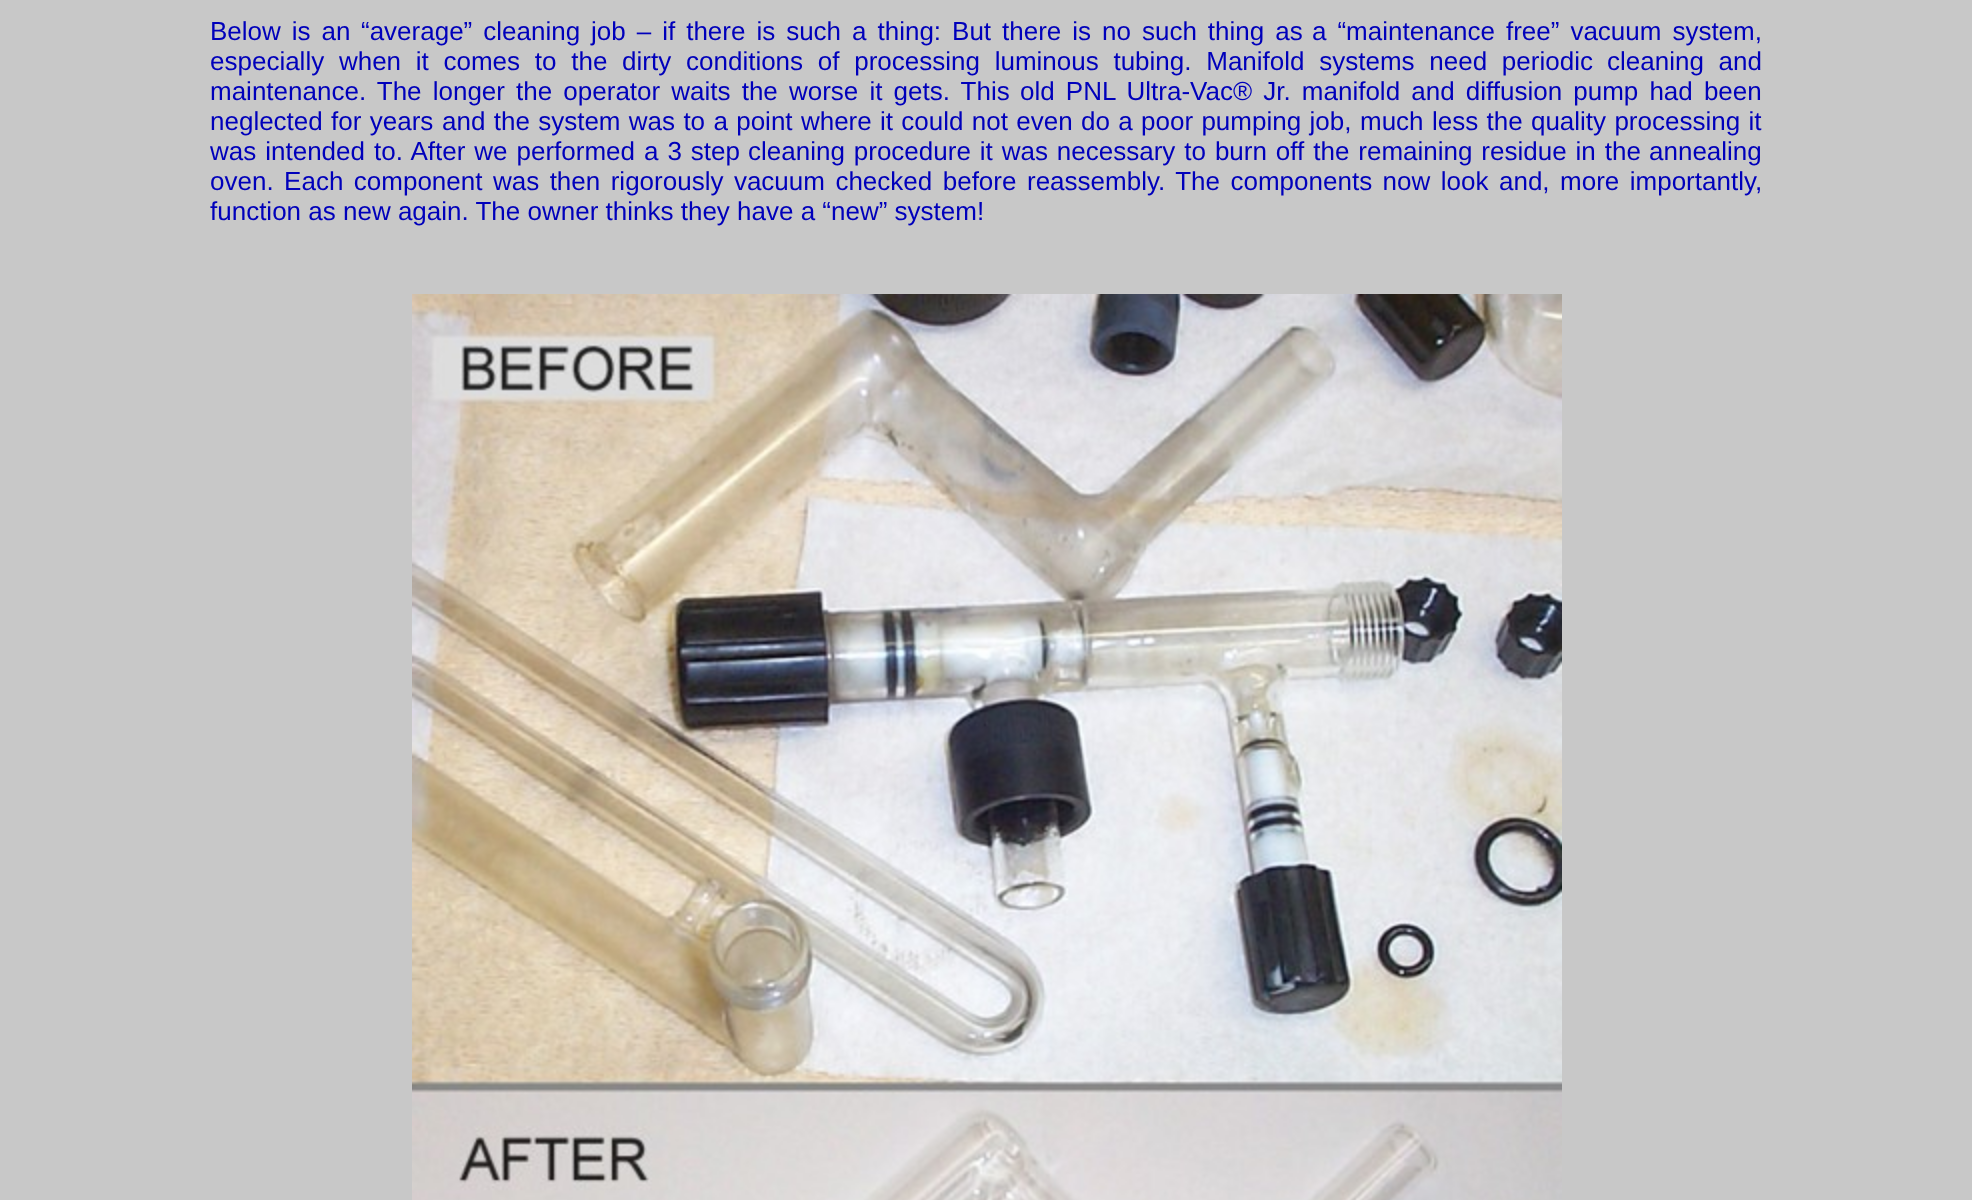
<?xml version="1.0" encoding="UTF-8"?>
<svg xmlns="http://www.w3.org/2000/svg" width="1972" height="1200">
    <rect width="100%" height="100%" fill="#C8C8C8"/>
    <text x="210" y="40" word-spacing="3.75" font-family="Liberation Sans" font-size="26" fill="#0000BB">Below is an</text>
    <text x="361" y="40" word-spacing="3.75" font-family="Liberation Sans" font-size="26" fill="#0000BB">“average” cleaning job – if there is such a thing: But there is no such thing as</text>
    <text x="1312" y="40" word-spacing="3.75" font-family="Liberation Sans" font-size="26" fill="#0000BB">a “maintenance free” vacuum system,</text>
    <text x="210" y="70" word-spacing="7.5" font-family="Liberation Sans" font-size="26" fill="#0000BB">especially when it comes to the dirty</text>
    <text x="686" y="70" word-spacing="7.5" font-family="Liberation Sans" font-size="26" fill="#0000BB">conditions of processing luminous tubing. Manifold systems need periodic</text>
    <text x="1607" y="70" word-spacing="7.5" font-family="Liberation Sans" font-size="26" fill="#0000BB">cleaning and</text>
    <text x="210" y="100" word-spacing="3.9" font-family="Liberation Sans" font-size="26" fill="#0000BB">maintenance. The longer the operator waits the worse it gets. This</text>
    <text x="1020" y="100" word-spacing="3.9" font-family="Liberation Sans" font-size="26" fill="#0000BB">old PNL Ultra-Vac® Jr. manifold and diffusion pump had been</text>
    <text x="210" y="130" word-spacing="1.1" font-family="Liberation Sans" font-size="26" fill="#0000BB">neglected for years</text>
    <text x="442" y="130" word-spacing="1.1" font-family="Liberation Sans" font-size="26" fill="#0000BB">and the system was to a point where it could not even do a poor pumping job,</text>
    <text x="1360" y="130" word-spacing="1.1" font-family="Liberation Sans" font-size="26" fill="#0000BB">much less the quality processing it</text>
    <text x="210" y="160" word-spacing="1.75" font-family="Liberation Sans" font-size="26" fill="#0000BB">was intended to. After we performed a 3 step</text>
    <text x="748" y="160" word-spacing="1.7" font-family="Liberation Sans" font-size="26" fill="#0000BB">cleaning procedure it was necessary to burn off the remaining residue in the</text>
    <text x="1649" y="160" font-family="Liberation Sans" font-size="26" fill="#0000BB">annealing</text>
    <text x="210" y="190" word-spacing="3.25" font-family="Liberation Sans" font-size="26" fill="#0000BB">oven. Each component was then rigorously vacuum checked before</text>
    <text x="1027" y="190" word-spacing="3.25" font-family="Liberation Sans" font-size="26" fill="#0000BB">reassembly. The components now look and, more importantly,</text>
    <text x="210" y="220" font-family="Liberation Sans" font-size="26" fill="#0000BB">function as new again. The owner thinks they have a “new” system!</text>
    <image x="412" y="294" width="1150" height="906" href="img_01.png"/>
</svg>
